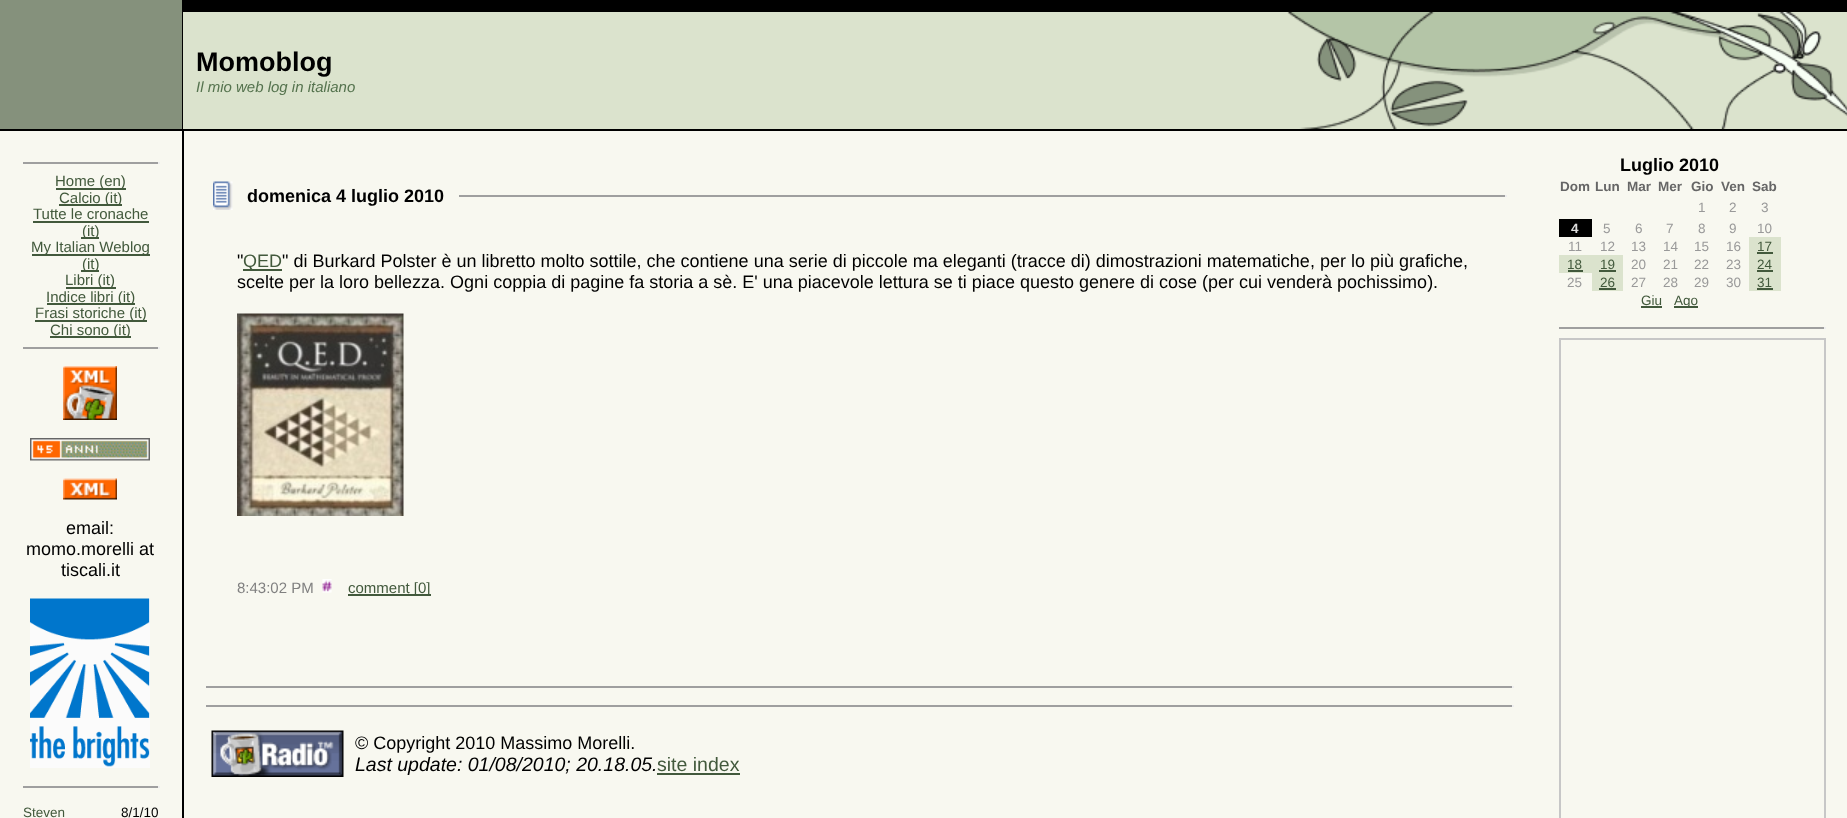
<?xml version="1.0" encoding="UTF-8"?>
<svg xmlns="http://www.w3.org/2000/svg" width="1847" height="818">
    <rect width="100%" height="100%" fill="#F8F8F0"/>
    <rect x="0" y="0" width="182" height="129" fill="#85917C"/>
    <rect x="182" y="0" width="1665" height="12" fill="#000000"/>
    <rect x="182" y="12" width="1" height="117" fill="#000000"/>
    <rect x="183" y="12" width="1664" height="117" fill="#DBE3CD"/>
    <text x="196" y="71" font-family="Liberation Sans" font-size="27" font-weight="700" fill="#000000">Momoblog</text>
    <text x="196" y="92" font-family="Liberation Sans" font-size="15" font-style="italic" fill="#55734E">Il mio web log in italiano</text>
    <image x="1287" y="12" width="560" height="117" href="img_01.png"/>
    <rect x="0" y="129" width="1847" height="2" fill="#000000"/>
    <rect x="23" y="162" width="136" height="2" fill="#9F9F9F"/>
    <rect x="158" y="162" width="2" height="2" fill="#EEEEEE"/>
    <rect x="56" y="188" width="70" height="2" fill="#42593C"/>
    <text x="55" y="186" font-family="Liberation Sans" font-size="15" fill="#42593C">Home (en)</text>
    <rect x="59" y="204" width="63" height="2" fill="#42593C"/>
    <text x="59" y="203" font-family="Liberation Sans" font-size="15" fill="#42593C">Calcio (it)</text>
    <text x="33" y="219" font-family="Liberation Sans" font-size="15" fill="#42593C">Tutte le cronache</text>
    <rect x="33" y="221" width="116" height="2" fill="#42593C"/>
    <rect x="81" y="237" width="18" height="2" fill="#42593C"/>
    <text x="82" y="236" font-family="Liberation Sans" font-size="15" fill="#42593C">(it)</text>
    <rect x="32" y="254" width="118" height="2" fill="#42593C"/>
    <text x="31" y="252" font-family="Liberation Sans" font-size="15" fill="#42593C">My Italian Weblog</text>
    <rect x="81" y="270" width="18" height="2" fill="#42593C"/>
    <text x="82" y="269" font-family="Liberation Sans" font-size="15" fill="#42593C">(it)</text>
    <rect x="66" y="287" width="50" height="2" fill="#42593C"/>
    <text x="65" y="285" font-family="Liberation Sans" font-size="15" fill="#42593C">Libri (it)</text>
    <rect x="47" y="303" width="88" height="2" fill="#42593C"/>
    <text x="46" y="302" font-family="Liberation Sans" font-size="15" fill="#42593C">Indice libri (it)</text>
    <rect x="35" y="320" width="112" height="2" fill="#42593C"/>
    <text x="35" y="318" font-family="Liberation Sans" font-size="15" fill="#42593C">Frasi storiche (it)</text>
    <rect x="50" y="336" width="81" height="2" fill="#42593C"/>
    <text x="50" y="335" font-family="Liberation Sans" font-size="15" fill="#42593C">Chi sono (it)</text>
    <rect x="23" y="347" width="136" height="2" fill="#9F9F9F"/>
    <rect x="158" y="347" width="2" height="2" fill="#EEEEEE"/>
    <image x="63" y="366" width="54" height="54" href="img_02.png"/>
    <image x="30" y="438" width="120" height="23" href="img_03.png"/>
    <image x="63" y="478" width="54" height="22" href="img_04.png"/>
    <text x="66" y="534" font-family="Liberation Sans" font-size="18" fill="#000000">email:</text>
    <text x="26" y="555" font-family="Liberation Sans" font-size="18" fill="#000000">momo.morelli at</text>
    <text x="61" y="576" font-family="Liberation Sans" font-size="18" fill="#000000">tiscali.it</text>
    <image x="30" y="598" width="120" height="170" href="img_05.png"/>
    <rect x="23" y="786" width="136" height="2" fill="#9F9F9F"/>
    <rect x="158" y="786" width="2" height="2" fill="#EEEEEE"/>
    <text x="23" y="817" font-family="Liberation Sans" font-size="13.5" fill="#42593C">Steven</text>
    <text x="121" y="817" font-family="Liberation Sans" font-size="13.5" fill="#000000">8/1/10</text>
    <rect x="182" y="131" width="2" height="687" fill="#000000"/>
    <image x="213" y="181" width="20" height="29" href="img_06.png"/>
    <text x="247" y="202" font-family="Liberation Sans" font-size="18" font-weight="700" fill="#000000">domenica 4 luglio 2010</text>
    <rect x="459" y="195" width="1047" height="2" fill="#9F9F9F"/>
    <rect x="1505" y="195" width="2" height="2" fill="#EEEEEE"/>
    <text x="237" y="267" font-family="Liberation Sans" font-size="18" fill="#000000">"</text>
    <rect x="243" y="269" width="39" height="2" fill="#42593C"/>
    <text x="243" y="267" font-family="Liberation Sans" font-size="18" fill="#42593C">QED</text>
    <text x="282" y="267" font-family="Liberation Sans" font-size="18" fill="#000000">" di Burkard Polster è un libretto molto sottile, che contiene una serie di piccole ma eleganti (tracce di) dimostrazioni matematiche, per lo più grafiche,</text>
    <text x="237" y="288" font-family="Liberation Sans" font-size="18" fill="#000000">scelte per la loro bellezza. Ogni coppia di pagine fa storia a sè. E' una piacevole lettura se ti piace questo genere di cose (per cui venderà pochissimo).</text>
    <image x="237" y="313" width="167" height="203" href="img_07.png"/>
    <text x="237" y="593" font-family="Liberation Sans" font-size="15" fill="#808080">8:43:02 PM</text>
    <image x="322" y="579" width="10" height="14" href="img_08.png"/>
    <rect x="348" y="594" width="69" height="2" fill="#42593C"/>
    <text x="348" y="593" font-family="Liberation Sans" font-size="15" fill="#42593C">comment [</text>
    <rect x="417" y="594" width="14" height="2" fill="#42593C"/>
    <text x="418" y="593" font-family="Liberation Sans" font-size="15" fill="#42593C">0]</text>
    <rect x="206" y="686" width="1308" height="2" fill="#9F9F9F"/>
    <rect x="1512" y="686" width="2" height="2" fill="#EEEEEE"/>
    <rect x="206" y="705" width="1308" height="2" fill="#9F9F9F"/>
    <rect x="1512" y="705" width="2" height="2" fill="#EEEEEE"/>
    <image x="211" y="730" width="133" height="47" href="img_09.png"/>
    <text x="355" y="749" font-family="Liberation Sans" font-size="18" fill="#000000">© Copyright 2010 Massimo Morelli.</text>
    <text x="355" y="771" font-family="Liberation Sans" font-size="19.5" font-style="italic" fill="#000000">Last update: 01/08/2010; 20.18.05.</text>
    <rect x="657" y="773" width="83" height="2" fill="#42593C"/>
    <text x="657" y="771" font-family="Liberation Sans" font-size="19.5" fill="#42593C">site index</text>
    <text x="1620" y="171" font-family="Liberation Sans" font-size="18" font-weight="700" fill="#000000">Luglio 2010</text>
    <text x="1560" y="191" font-family="Liberation Sans" font-size="13.5" font-weight="700" fill="#666666">Dom</text>
    <text x="1595" y="191" font-family="Liberation Sans" font-size="13.5" font-weight="700" fill="#666666">Lun</text>
    <text x="1627" y="191" font-family="Liberation Sans" font-size="13.5" font-weight="700" fill="#666666">Mar</text>
    <text x="1658" y="191" font-family="Liberation Sans" font-size="13.5" font-weight="700" fill="#666666">Mer</text>
    <text x="1691" y="191" font-family="Liberation Sans" font-size="13.5" font-weight="700" fill="#666666">Gio</text>
    <text x="1721" y="191" font-family="Liberation Sans" font-size="13.5" font-weight="700" fill="#666666">Ven</text>
    <text x="1752" y="191" font-family="Liberation Sans" font-size="13.5" font-weight="700" fill="#666666">Sab</text>
    <text x="1698" y="212" font-family="Liberation Sans" font-size="13.5" fill="#999999">1</text>
    <text x="1729" y="212" font-family="Liberation Sans" font-size="13.5" fill="#999999">2</text>
    <text x="1761" y="212" font-family="Liberation Sans" font-size="13.5" fill="#999999">3</text>
    <rect x="1559" y="219" width="33" height="18" fill="#000000"/>
    <text x="1571" y="233" font-family="Liberation Sans" font-size="13.5" font-weight="700" fill="#DCDCDC">4</text>
    <text x="1603" y="233" font-family="Liberation Sans" font-size="13.5" fill="#999999">5</text>
    <text x="1635" y="233" font-family="Liberation Sans" font-size="13.5" fill="#999999">6</text>
    <text x="1666" y="233" font-family="Liberation Sans" font-size="13.5" fill="#999999">7</text>
    <text x="1698" y="233" font-family="Liberation Sans" font-size="13.5" fill="#999999">8</text>
    <text x="1729" y="233" font-family="Liberation Sans" font-size="13.5" fill="#999999">9</text>
    <text x="1757" y="233" font-family="Liberation Sans" font-size="13.5" fill="#999999">10</text>
    <text x="1568" y="251" font-family="Liberation Sans" font-size="13.5" fill="#999999">11</text>
    <text x="1600" y="251" font-family="Liberation Sans" font-size="13.5" fill="#999999">12</text>
    <text x="1631" y="251" font-family="Liberation Sans" font-size="13.5" fill="#999999">13</text>
    <text x="1663" y="251" font-family="Liberation Sans" font-size="13.5" fill="#999999">14</text>
    <text x="1694" y="251" font-family="Liberation Sans" font-size="13.5" fill="#999999">15</text>
    <text x="1726" y="251" font-family="Liberation Sans" font-size="13.5" fill="#999999">16</text>
    <rect x="1749" y="237" width="32" height="54" fill="#DBE3CD"/>
    <text x="1757" y="251" font-family="Liberation Sans" font-size="13.5" fill="#42593C">17</text>
    <rect x="1757" y="252" width="16" height="2" fill="#42593C"/>
    <rect x="1559" y="255" width="64" height="18" fill="#DBE3CD"/>
    <text x="1567" y="269" font-family="Liberation Sans" font-size="13.5" fill="#42593C">18</text>
    <rect x="1568" y="270" width="15" height="2" fill="#42593C"/>
    <text x="1600" y="269" font-family="Liberation Sans" font-size="13.5" fill="#42593C">19</text>
    <rect x="1599" y="270" width="17" height="2" fill="#42593C"/>
    <text x="1631" y="269" font-family="Liberation Sans" font-size="13.5" fill="#999999">20</text>
    <text x="1663" y="269" font-family="Liberation Sans" font-size="13.5" fill="#999999">21</text>
    <text x="1694" y="269" font-family="Liberation Sans" font-size="13.5" fill="#999999">22</text>
    <text x="1726" y="269" font-family="Liberation Sans" font-size="13.5" fill="#999999">23</text>
    <text x="1757" y="269" font-family="Liberation Sans" font-size="13.5" fill="#42593C">24</text>
    <rect x="1757" y="270" width="16" height="2" fill="#42593C"/>
    <text x="1567" y="287" font-family="Liberation Sans" font-size="13.5" fill="#999999">25</text>
    <rect x="1592" y="273" width="31" height="18" fill="#DBE3CD"/>
    <text x="1600" y="287" font-family="Liberation Sans" font-size="13.5" fill="#42593C">26</text>
    <rect x="1599" y="288" width="17" height="2" fill="#42593C"/>
    <text x="1631" y="287" font-family="Liberation Sans" font-size="13.5" fill="#999999">27</text>
    <text x="1663" y="287" font-family="Liberation Sans" font-size="13.5" fill="#999999">28</text>
    <text x="1694" y="287" font-family="Liberation Sans" font-size="13.5" fill="#999999">29</text>
    <text x="1726" y="287" font-family="Liberation Sans" font-size="13.5" fill="#999999">30</text>
    <text x="1757" y="287" font-family="Liberation Sans" font-size="13.5" fill="#42593C">31</text>
    <rect x="1757" y="288" width="16" height="2" fill="#42593C"/>
    <text x="1641" y="305" font-family="Liberation Sans" font-size="13.5" fill="#42593C">Giu</text>
    <rect x="1641" y="306" width="21" height="2" fill="#42593C"/>
    <rect x="1674" y="306" width="24" height="2" fill="#42593C"/>
    <text x="1674" y="305" font-family="Liberation Sans" font-size="13.5" fill="#42593C">Ago</text>
    <rect x="1559" y="327" width="267" height="2" fill="#9F9F9F"/>
    <rect x="1824" y="327" width="2" height="2" fill="#EEEEEE"/>
    <rect x="1560" y="339" width="265" height="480" fill="none" stroke="#C7C7C7" stroke-width="2"/>
</svg>
